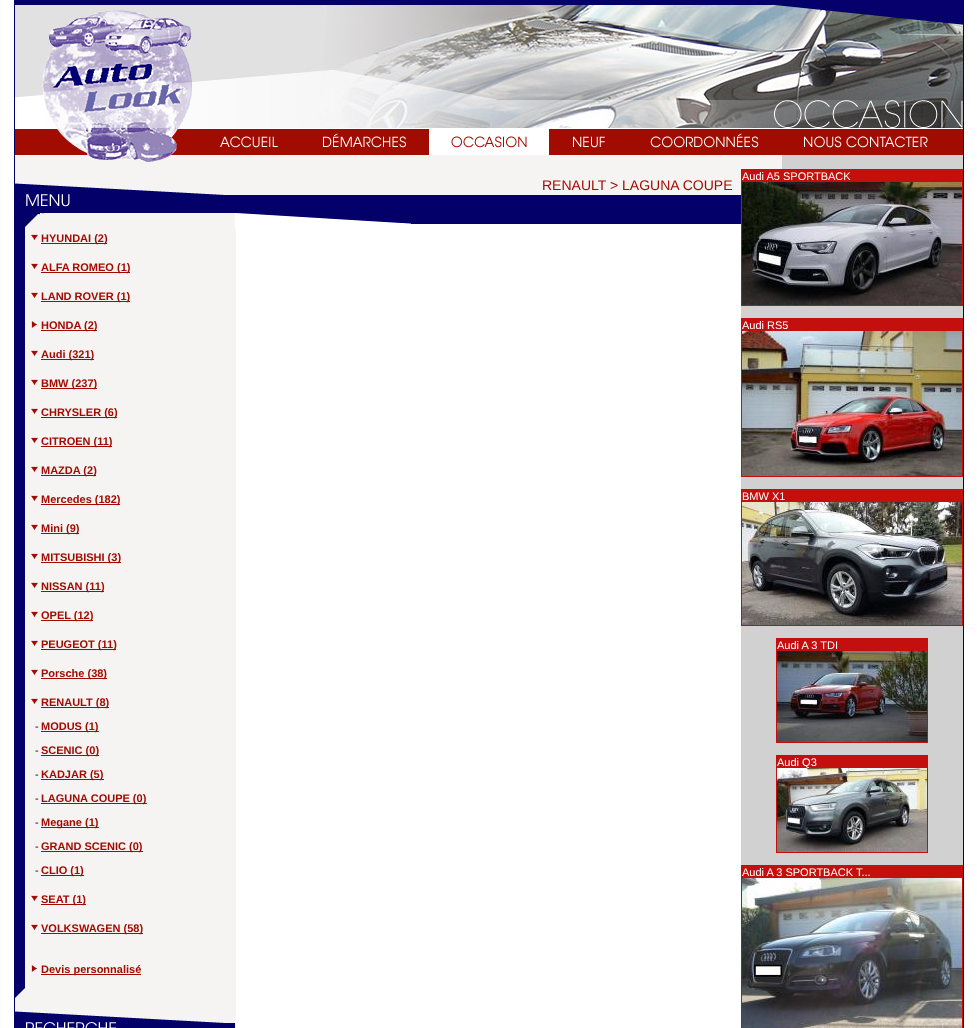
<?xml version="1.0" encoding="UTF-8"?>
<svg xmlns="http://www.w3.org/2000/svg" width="977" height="1028">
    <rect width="100%" height="100%" fill="#FFFFFF"/>
    <rect x="14" y="0" width="950" height="1" fill="#04006A"/>
    <rect x="963" y="0" width="1" height="1028" fill="#04006A"/>
    <rect x="14" y="0" width="1" height="1028" fill="#04006A"/>
    <image x="15" y="1" width="285" height="128" href="img_01.png"/>
    <image x="300" y="1" width="663" height="99" href="img_02.png"/>
    <image x="300" y="100" width="663" height="29" href="img_03.png"/>
    <image x="15" y="129" width="182" height="26" href="img_04.png"/>
    <image x="197" y="129" width="103" height="26" href="img_05.png"/>
    <image x="300" y="129" width="129" height="26" href="img_06.png"/>
    <image x="451" y="136" width="76" height="12" href="img_07.png"/>
    <image x="549" y="129" width="79" height="26" href="img_08.png"/>
    <image x="628" y="129" width="153" height="26" href="img_09.png"/>
    <image x="781" y="129" width="182" height="26" href="img_10.png"/>
    <image x="15" y="155" width="948" height="14" href="img_11.png"/>
    <rect x="15" y="169" width="221" height="859" fill="#F6F3F3"/>
    <image x="235" y="169" width="506" height="60" href="img_12.png"/>
    <text x="542" y="190" font-family="Liberation Sans" font-size="14" fill="#A20C00">RENAULT &gt; LAGUNA COUPE</text>
    <image x="15" y="183" width="220" height="44" href="img_13.png"/>
    <rect x="15" y="227" width="10" height="760" fill="#04006A"/>
    <image x="31" y="234" width="7" height="7" href="img_14.png"/>
    <rect x="41" y="243" width="66" height="1" fill="#A20C00"/>
    <text x="41" y="242" font-family="Liberation Sans" font-size="11" font-weight="700" fill="#A20C00">HYUNDAI (2)</text>
    <image x="31" y="263" width="7" height="7" href="img_14.png"/>
    <rect x="41" y="272" width="89" height="1" fill="#A20C00"/>
    <text x="41" y="271" font-family="Liberation Sans" font-size="11" font-weight="700" fill="#A20C00">ALFA ROMEO (1)</text>
    <image x="31" y="292" width="7" height="7" href="img_14.png"/>
    <rect x="41" y="301" width="89" height="1" fill="#A20C00"/>
    <text x="41" y="300" font-family="Liberation Sans" font-size="11" font-weight="700" fill="#A20C00">LAND ROVER (1)</text>
    <image x="31" y="321" width="7" height="7" href="img_15.png"/>
    <rect x="41" y="330" width="56" height="1" fill="#A20C00"/>
    <text x="41" y="329" font-family="Liberation Sans" font-size="11" font-weight="700" fill="#A20C00">HONDA (2)</text>
    <image x="31" y="350" width="7" height="7" href="img_14.png"/>
    <rect x="41" y="359" width="53" height="1" fill="#A20C00"/>
    <text x="41" y="358" font-family="Liberation Sans" font-size="11" font-weight="700" fill="#A20C00">Audi (321)</text>
    <image x="31" y="379" width="7" height="7" href="img_14.png"/>
    <rect x="41" y="388" width="56" height="1" fill="#A20C00"/>
    <text x="41" y="387" font-family="Liberation Sans" font-size="11" font-weight="700" fill="#A20C00">BMW (237)</text>
    <image x="31" y="408" width="7" height="7" href="img_14.png"/>
    <rect x="41" y="417" width="76" height="1" fill="#A20C00"/>
    <text x="41" y="416" font-family="Liberation Sans" font-size="11" font-weight="700" fill="#A20C00">CHRYSLER (6)</text>
    <image x="31" y="437" width="7" height="7" href="img_14.png"/>
    <rect x="41" y="446" width="71" height="1" fill="#A20C00"/>
    <text x="41" y="445" font-family="Liberation Sans" font-size="11" font-weight="700" fill="#A20C00">CITROEN (11)</text>
    <image x="31" y="466" width="7" height="7" href="img_14.png"/>
    <rect x="41" y="475" width="55" height="1" fill="#A20C00"/>
    <text x="41" y="474" font-family="Liberation Sans" font-size="11" font-weight="700" fill="#A20C00">MAZDA (2)</text>
    <image x="31" y="495" width="7" height="7" href="img_14.png"/>
    <rect x="41" y="504" width="79" height="1" fill="#A20C00"/>
    <text x="41" y="503" font-family="Liberation Sans" font-size="11" font-weight="700" fill="#A20C00">Mercedes (182)</text>
    <image x="31" y="524" width="7" height="7" href="img_14.png"/>
    <rect x="41" y="533" width="38" height="1" fill="#A20C00"/>
    <text x="41" y="532" font-family="Liberation Sans" font-size="11" font-weight="700" fill="#A20C00">Mini (9)</text>
    <image x="31" y="553" width="7" height="7" href="img_14.png"/>
    <rect x="41" y="562" width="80" height="1" fill="#A20C00"/>
    <text x="41" y="561" font-family="Liberation Sans" font-size="11" font-weight="700" fill="#A20C00">MITSUBISHI (3)</text>
    <image x="31" y="582" width="7" height="7" href="img_14.png"/>
    <rect x="41" y="591" width="63" height="1" fill="#A20C00"/>
    <text x="41" y="590" font-family="Liberation Sans" font-size="11" font-weight="700" fill="#A20C00">NISSAN (11)</text>
    <image x="31" y="611" width="7" height="7" href="img_14.png"/>
    <rect x="41" y="620" width="52" height="1" fill="#A20C00"/>
    <text x="41" y="619" font-family="Liberation Sans" font-size="11" font-weight="700" fill="#A20C00">OPEL (12)</text>
    <image x="31" y="640" width="7" height="7" href="img_14.png"/>
    <rect x="41" y="649" width="75" height="1" fill="#A20C00"/>
    <text x="41" y="648" font-family="Liberation Sans" font-size="11" font-weight="700" fill="#A20C00">PEUGEOT (11)</text>
    <image x="31" y="669" width="7" height="7" href="img_14.png"/>
    <rect x="41" y="678" width="66" height="1" fill="#A20C00"/>
    <text x="41" y="677" font-family="Liberation Sans" font-size="11" font-weight="700" fill="#A20C00">Porsche (38)</text>
    <image x="31" y="698" width="7" height="7" href="img_14.png"/>
    <rect x="41" y="707" width="68" height="1" fill="#A20C00"/>
    <text x="41" y="706" font-family="Liberation Sans" font-size="11" font-weight="700" fill="#A20C00">RENAULT (8)</text>
    <text x="35" y="730" font-family="Liberation Sans" font-size="11" fill="#000000">-</text>
    <rect x="41" y="731" width="58" height="1" fill="#A20C00"/>
    <text x="41" y="730" font-family="Liberation Sans" font-size="11" font-weight="700" fill="#A20C00">MODUS (1)</text>
    <text x="35" y="754" font-family="Liberation Sans" font-size="11" fill="#000000">-</text>
    <rect x="41" y="755" width="58" height="1" fill="#A20C00"/>
    <text x="41" y="754" font-family="Liberation Sans" font-size="11" font-weight="700" fill="#A20C00">SCENIC (0)</text>
    <text x="35" y="778" font-family="Liberation Sans" font-size="11" fill="#000000">-</text>
    <rect x="41" y="779" width="63" height="1" fill="#A20C00"/>
    <text x="41" y="778" font-family="Liberation Sans" font-size="11" font-weight="700" fill="#A20C00">KADJAR (5)</text>
    <text x="35" y="802" font-family="Liberation Sans" font-size="11" fill="#000000">-</text>
    <rect x="41" y="803" width="106" height="1" fill="#A20C00"/>
    <text x="41" y="802" font-family="Liberation Sans" font-size="11" font-weight="700" fill="#A20C00">LAGUNA COUPE (0)</text>
    <text x="35" y="826" font-family="Liberation Sans" font-size="11" fill="#000000">-</text>
    <rect x="41" y="827" width="58" height="1" fill="#A20C00"/>
    <text x="41" y="826" font-family="Liberation Sans" font-size="11" font-weight="700" fill="#A20C00">Megane (1)</text>
    <text x="35" y="850" font-family="Liberation Sans" font-size="11" fill="#000000">-</text>
    <rect x="41" y="851" width="102" height="1" fill="#A20C00"/>
    <text x="41" y="850" font-family="Liberation Sans" font-size="11" font-weight="700" fill="#A20C00">GRAND SCENIC (0)</text>
    <text x="35" y="874" font-family="Liberation Sans" font-size="11" fill="#000000">-</text>
    <rect x="41" y="875" width="43" height="1" fill="#A20C00"/>
    <text x="41" y="874" font-family="Liberation Sans" font-size="11" font-weight="700" fill="#A20C00">CLIO (1)</text>
    <image x="31" y="895" width="7" height="7" href="img_14.png"/>
    <rect x="41" y="904" width="45" height="1" fill="#A20C00"/>
    <text x="41" y="903" font-family="Liberation Sans" font-size="11" font-weight="700" fill="#A20C00">SEAT (1)</text>
    <image x="31" y="924" width="7" height="7" href="img_14.png"/>
    <rect x="41" y="933" width="102" height="1" fill="#A20C00"/>
    <text x="41" y="932" font-family="Liberation Sans" font-size="11" font-weight="700" fill="#A20C00">VOLKSWAGEN (58)</text>
    <image x="31" y="965" width="7" height="7" href="img_15.png"/>
    <rect x="41" y="974" width="100" height="1" fill="#A20C00"/>
    <text x="41" y="973" font-family="Liberation Sans" font-size="11" font-weight="700" fill="#A20C00">Devis personnalisé</text>
    <image x="15" y="987" width="10" height="11" href="img_16.png"/>
    <image x="15" y="1011" width="220" height="17" href="img_17.png"/>
    <rect x="741" y="306" width="222" height="559" fill="#D1D1D1"/>
    <rect x="741" y="169" width="222" height="137" fill="#C40F0F"/>
    <text x="742" y="180" font-family="Liberation Sans" font-size="11" fill="#FFFFFF">Audi A5 SPORTBACK</text>
    <image x="742" y="182" width="220" height="123" href="img_18.png"/>
    <rect x="741" y="318" width="222" height="159" fill="#C40F0F"/>
    <text x="742" y="329" font-family="Liberation Sans" font-size="11" fill="#FFFFFF">Audi RS5</text>
    <image x="742" y="331" width="220" height="145" href="img_19.png"/>
    <rect x="741" y="489" width="222" height="137" fill="#C40F0F"/>
    <text x="742" y="500" font-family="Liberation Sans" font-size="11" fill="#FFFFFF">BMW X1</text>
    <image x="742" y="502" width="220" height="123" href="img_20.png"/>
    <rect x="776" y="638" width="152" height="105" fill="#C40F0F"/>
    <text x="777" y="649" font-family="Liberation Sans" font-size="11" fill="#FFFFFF">Audi A 3 TDI</text>
    <image x="777" y="651" width="150" height="91" href="img_21.png"/>
    <rect x="776" y="755" width="152" height="98" fill="#C40F0F"/>
    <text x="777" y="766" font-family="Liberation Sans" font-size="11" fill="#FFFFFF">Audi Q3</text>
    <image x="777" y="768" width="150" height="84" href="img_22.png"/>
    <rect x="741" y="865" width="222" height="163" fill="#C40F0F"/>
    <text x="742" y="876" font-family="Liberation Sans" font-size="11" fill="#FFFFFF">Audi A 3 SPORTBACK T...</text>
    <image x="742" y="878" width="220" height="150" href="img_23.png"/>
</svg>
